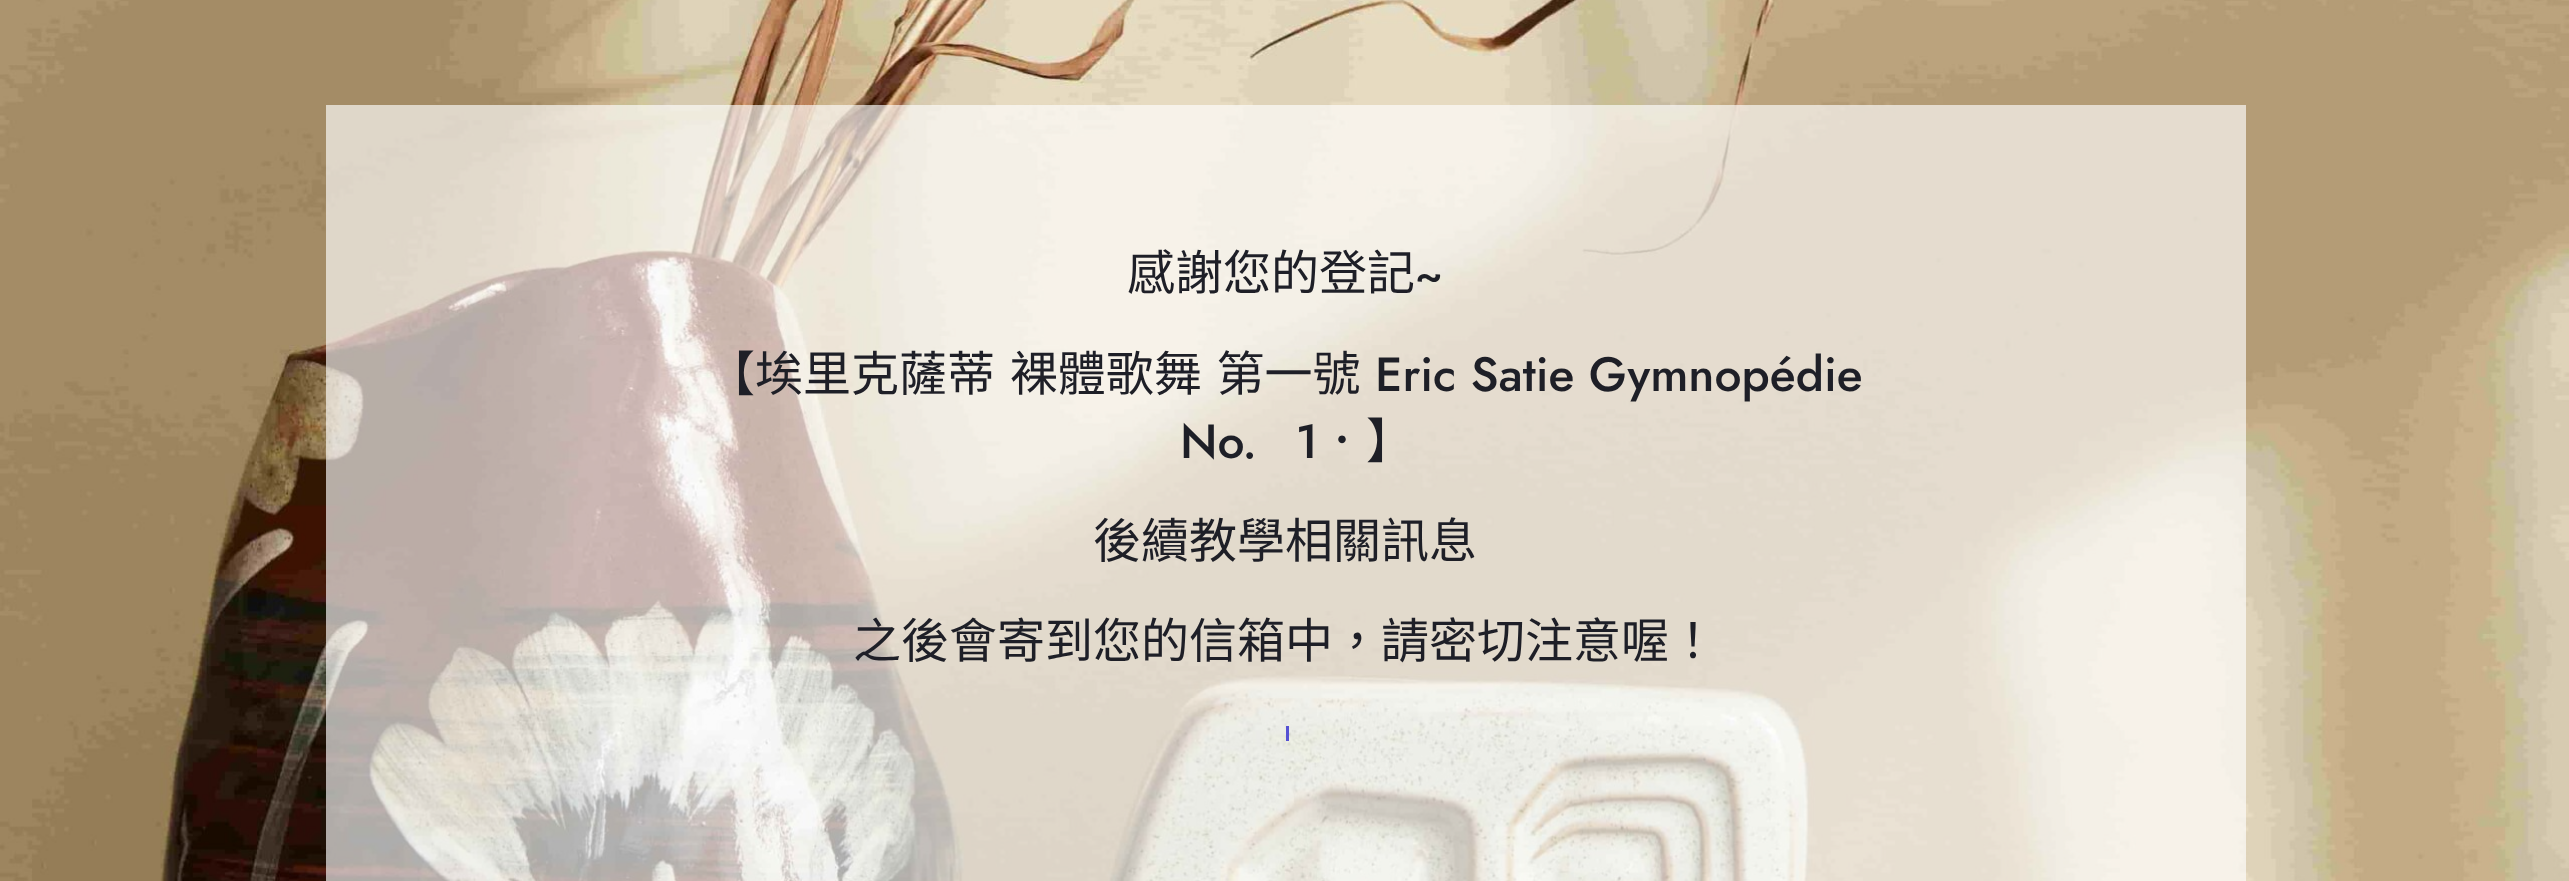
<?xml version="1.0" encoding="UTF-8"?>
<svg xmlns="http://www.w3.org/2000/svg" width="2569" height="881">
    <rect width="100%" height="100%" fill="#FFFFFF"/>
    <image x="0" y="0" width="2569" height="881" href="img_01.png"/>
    <rect x="326" y="105" width="1920" height="776" fill="#FFFFFF" fill-opacity="0.65"/>
    <text x="1127" y="290" font-family="Noto Sans CJK TC" font-size="48" fill="#1E1F27">感謝您的登記</text>
    <text x="1415" y="290" font-family="Jost" font-size="48" font-weight="500" fill="#1E1F27">~</text>
    <text x="707" y="391" word-spacing="4" font-family="Noto Sans CJK TC" font-size="48" fill="#1E1F27">【埃里克薩蒂 裸體歌舞 第一號</text>
    <text x="1375" y="391" font-family="Jost" font-size="48" font-weight="500" fill="#1E1F27">Eric Satie Gymnopédie</text>
    <text x="1180" y="458" word-spacing="24" font-family="Jost" font-size="48" font-weight="500" fill="#1E1F27">No. 1</text>
    <text x="1318" y="458" font-family="Noto Sans CJK TC" font-size="48" fill="#1E1F27">．】</text>
    <text x="1093" y="558" font-family="Noto Sans CJK TC" font-size="48" fill="#1E1F27">後續教學相關訊息</text>
    <text x="853" y="658" font-family="Noto Sans CJK TC" font-size="48" fill="#1E1F27">之後會寄到您的信箱中，請密切注意喔！</text>
    <rect x="1286" y="726" width="3" height="15" fill="#5551D3"/>
</svg>
